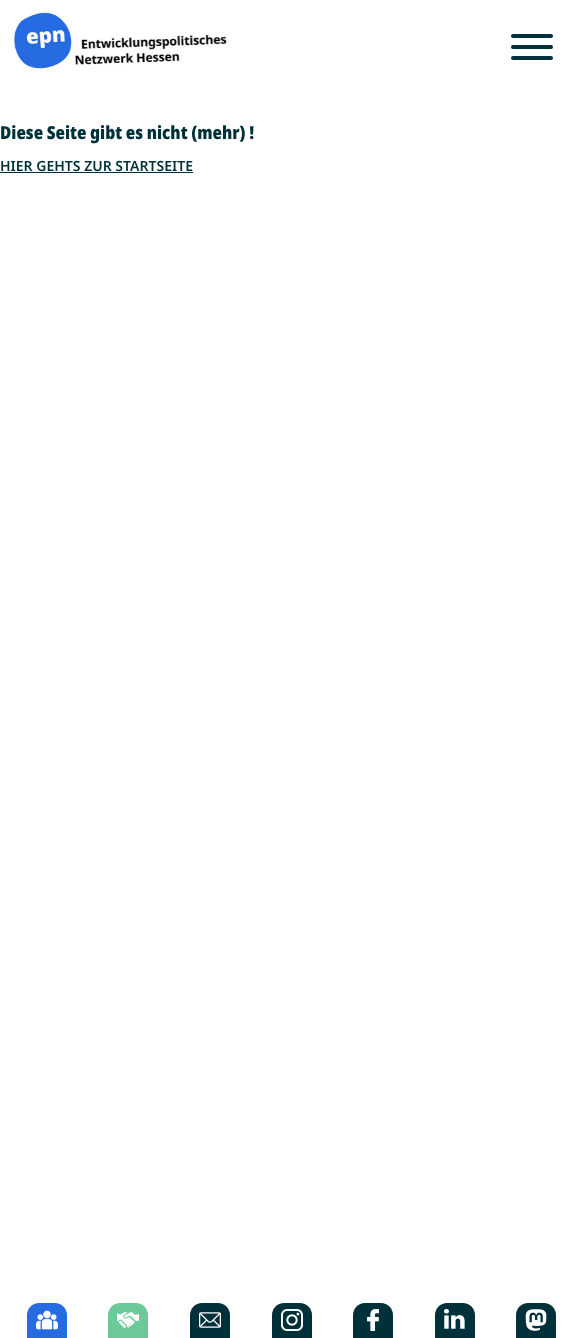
<?xml version="1.0" encoding="UTF-8"?>
<svg xmlns="http://www.w3.org/2000/svg" width="583" height="1338">
    <rect width="100%" height="100%" fill="#FFFFFF"/>
    <image x="13" y="12" width="214" height="58" href="img_01.png"/>
    <rect x="511" y="34" width="42" height="4" rx="2" fill="#00313A"/>
    <rect x="511" y="45" width="42" height="4" rx="2" fill="#00313A"/>
    <rect x="511" y="56" width="42" height="4" rx="2" fill="#00313A"/>
    <text x="0" y="139" font-family="Noto Sans" font-size="18" font-weight="900" fill="#00313A">Diese Seite gibt es nicht (mehr) !</text>
    <text x="0" y="171" font-family="Noto Sans" font-size="14" font-weight="600" fill="#00313A">HIER GEHTS ZUR STARTSEITE</text>
    <rect x="0" y="172" width="193" height="1" fill="#00313A"/>
    <path d="M 39 1303 H 55 C 61.5 1303 67 1308.5 67 1315 V 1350 H 27 V 1315 C 27 1308.5 32.5 1303 39 1303 Z" fill="#276BE3"/>
    <image x="36" y="1310" width="22" height="20" href="img_02.png"/>
    <path d="M 120 1303 H 136 C 142.5 1303 148 1308.5 148 1315 V 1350 H 108 V 1315 C 108 1308.5 113.5 1303 120 1303 Z" fill="#6CCA98"/>
    <image x="117" y="1312" width="22" height="16" href="img_03.png"/>
    <path d="M 202 1303 H 218 C 224.5 1303 230 1308.5 230 1315 V 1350 H 190 V 1315 C 190 1308.5 195.5 1303 202 1303 Z" fill="#00313A"/>
    <image x="199" y="1312" width="22" height="16" href="img_04.png"/>
    <path d="M 284 1303 H 300 C 306.5 1303 312 1308.5 312 1315 V 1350 H 272 V 1315 C 272 1308.5 277.5 1303 284 1303 Z" fill="#00313A"/>
    <image x="281" y="1309" width="22" height="22" href="img_05.png"/>
    <path d="M 365 1303 H 381 C 387.5 1303 393 1308.5 393 1315 V 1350 H 353 V 1315 C 353 1308.5 358.5 1303 365 1303 Z" fill="#00313A"/>
    <image x="367" y="1309" width="12" height="22" href="img_06.png"/>
    <path d="M 447 1303 H 463 C 469.5 1303 475 1308.5 475 1315 V 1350 H 435 V 1315 C 435 1308.5 440.5 1303 447 1303 Z" fill="#00313A"/>
    <image x="444" y="1309" width="21" height="20" href="img_07.png"/>
    <path d="M 528 1303 H 544 C 550.5 1303 556 1308.5 556 1315 V 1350 H 516 V 1315 C 516 1308.5 521.5 1303 528 1303 Z" fill="#00313A"/>
    <image x="525" y="1309" width="22" height="22" href="img_08.png"/>
</svg>
